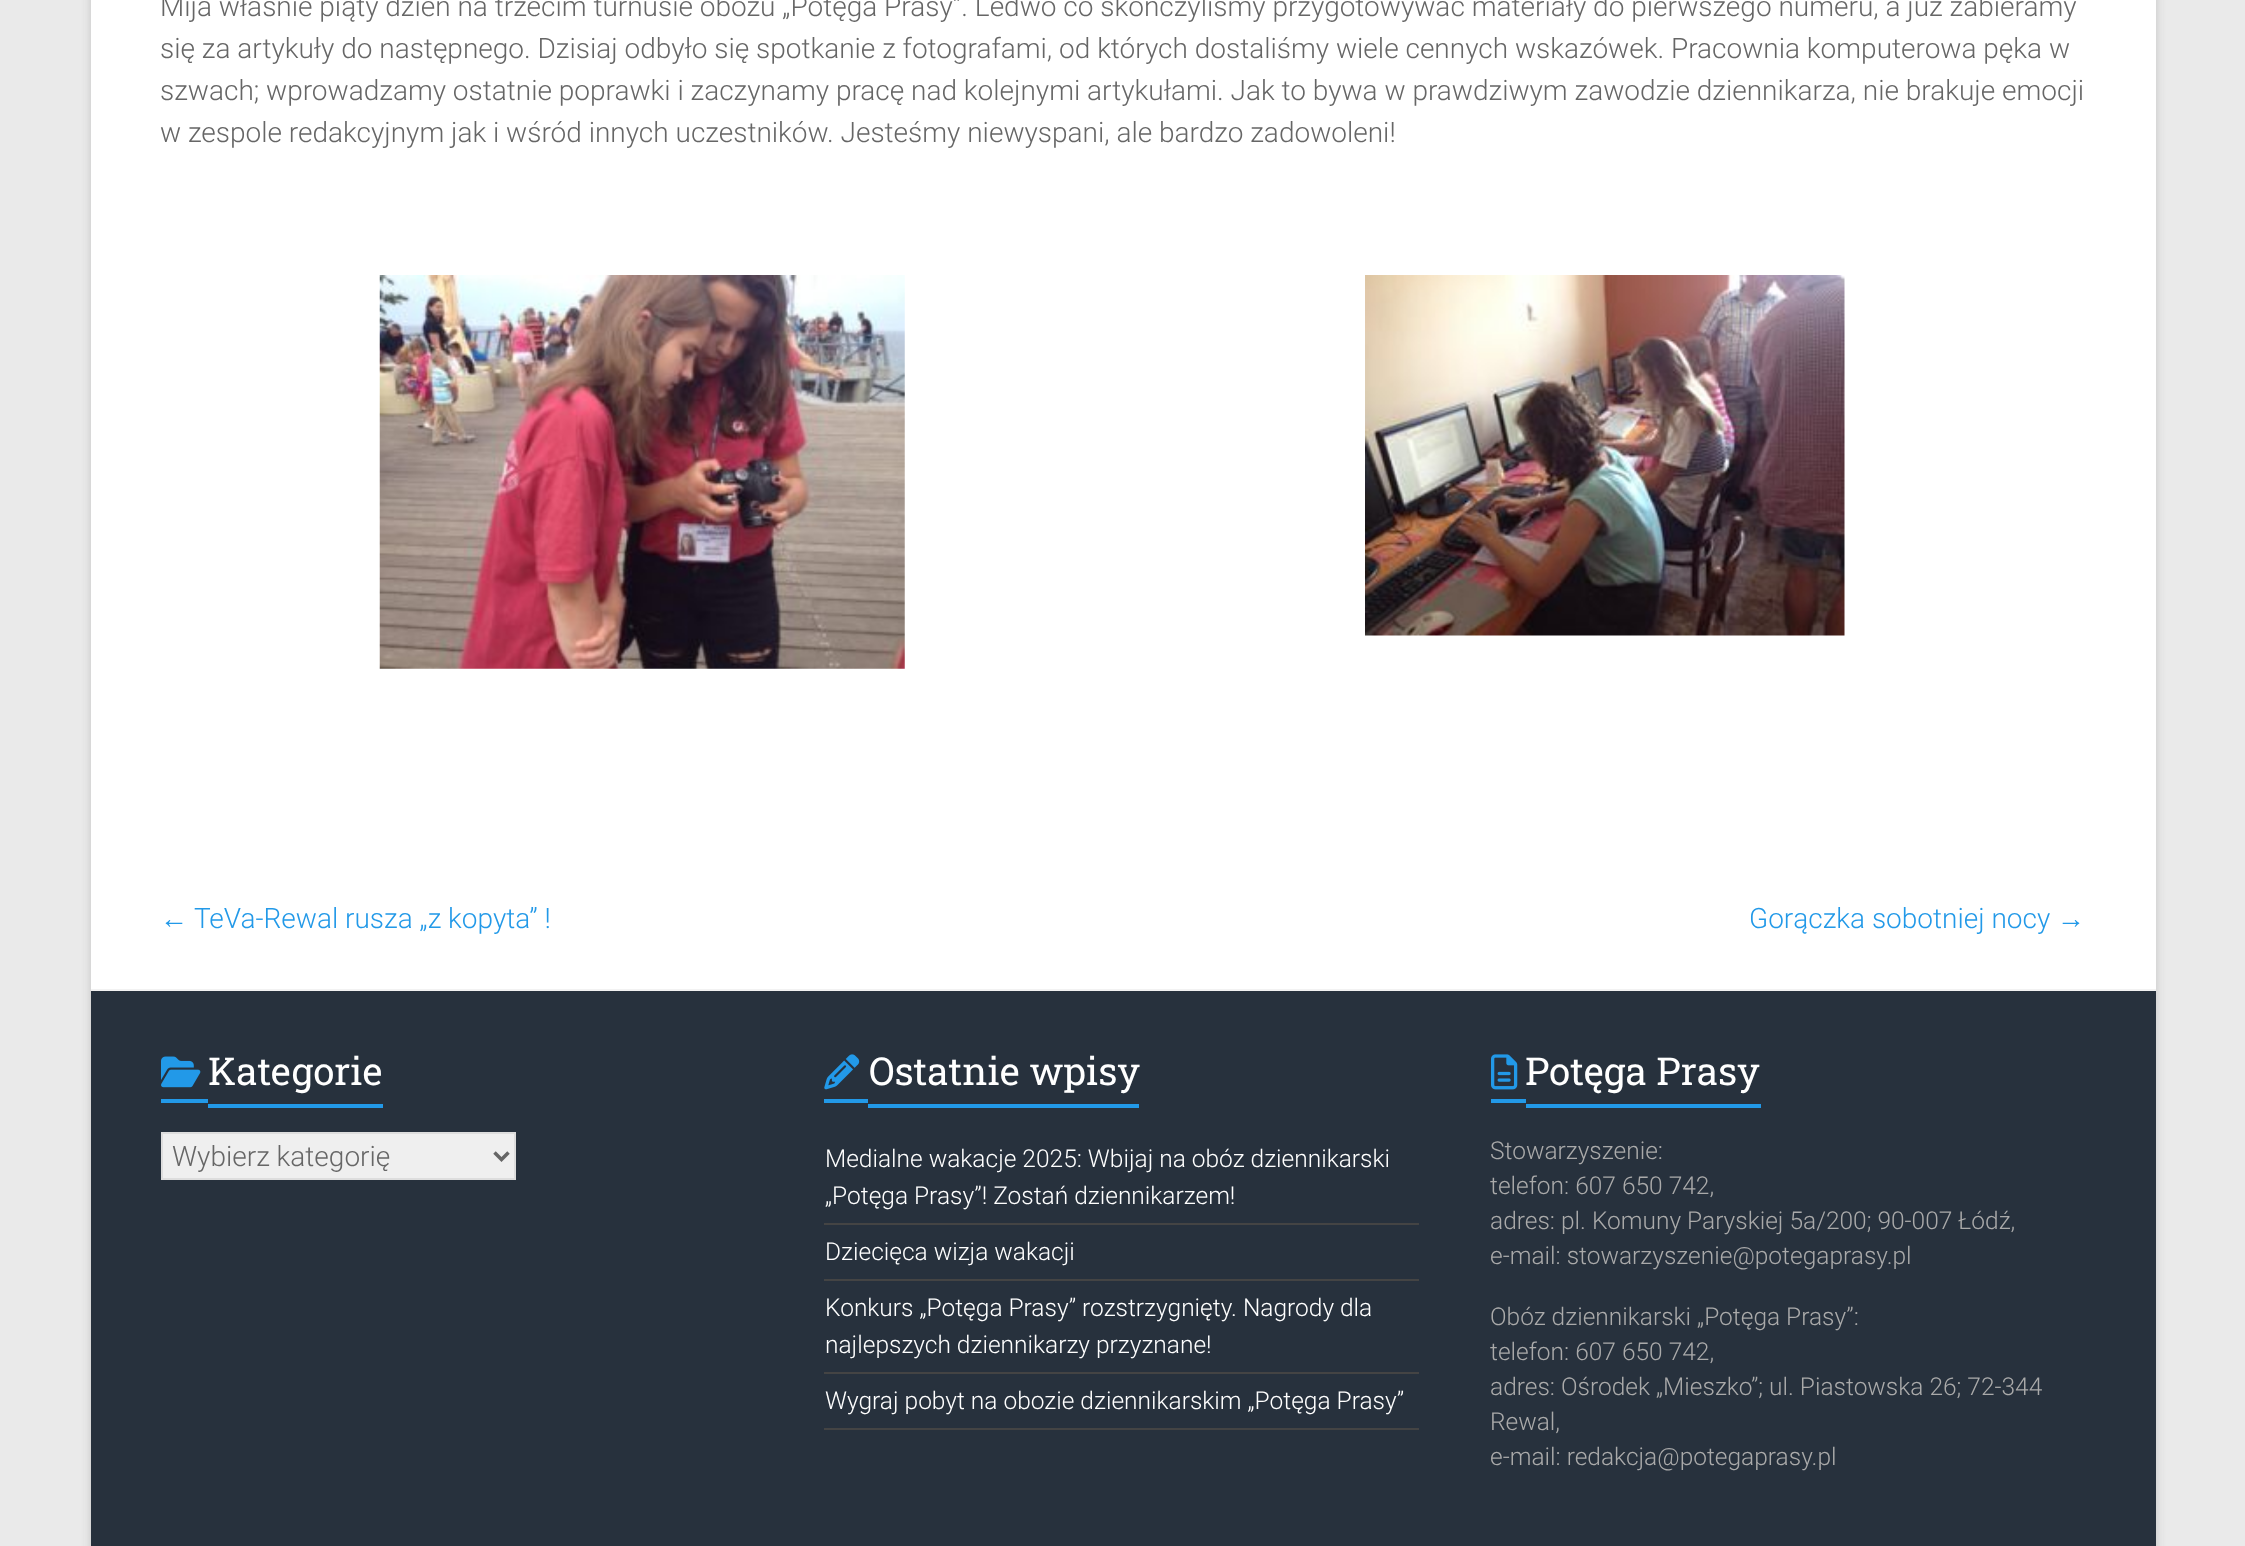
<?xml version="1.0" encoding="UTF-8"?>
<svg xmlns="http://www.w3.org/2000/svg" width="2245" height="1546">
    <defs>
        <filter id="blur1" x="-50%" y="-200%" width="200%" height="500%"><feGaussianBlur stdDeviation="5"/></filter>
    </defs>
    <rect width="100%" height="100%" fill="#EAEAEA"/>
    <rect x="91" y="-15" width="2065" height="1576" fill="#646464" fill-opacity="0.3" filter="url(#blur1)"/>
    <rect x="91" y="0" width="2065" height="989" fill="#FFFFFF"/>
    <text font-family="Roboto" font-size="28" font-weight="300" fill="#666666">
        <tspan x="160" y="16">Mija właśnie piąty dzień na trzecim turnusie obozu „Potęga Prasy”. Ledwo co skończyliśmy przygotowywać materiały do pierwszego numeru, a już zabieramy</tspan>
        <tspan x="160" y="58">się za artykuły do następnego. Dzisiaj odbyło się spotkanie z fotografami, od których dostaliśmy wiele cennych wskazówek. Pracownia komputerowa pęka w</tspan>
        <tspan x="160" y="100">szwach; wprowadzamy ostatnie poprawki i zaczynamy pracę nad kolejnymi artykułami. Jak to bywa w prawdziwym zawodzie dziennikarza, nie brakuje emocji</tspan>
        <tspan x="160" y="142">w zespole redakcyjnym jak i wśród innych uczestników. Jesteśmy niewyspani, ale bardzo zadowoleni!</tspan>
    </text>
    <image x="379" y="275" width="526" height="394" href="img_01.png"/>
    <image x="1365" y="275" width="480" height="361" href="img_02.png"/>
    <text x="160" y="928" font-family="Liberation Sans" font-size="28" fill="#2299E8">←</text>
    <text x="194" y="928" font-family="Roboto" font-size="28" font-weight="300" fill="#2299E8">TeVa-Rewal rusza „z kopyta” !</text>
    <text x="1749" y="928" font-family="Roboto" font-size="28" font-weight="300" fill="#2299E8">Gorączka sobotniej nocy</text>
    <text x="2057" y="928" font-family="Liberation Sans" font-size="28" fill="#2299E8">→</text>
    <rect x="91" y="991" width="2065" height="555" fill="#27313D"/>
    <rect x="91" y="989" width="2065" height="2" fill="#F2F2F2"/>
    <image x="161" y="1056" width="40" height="32" href="img_03.png"/>
    <text x="208" y="1085" font-family="Roboto Slab" font-size="38.5" fill="#FFFFFF">Kategorie</text>
    <rect x="161" y="1099" width="47" height="4" fill="#2299E8"/>
    <rect x="208" y="1104" width="175" height="4" fill="#2299E8"/>
    <rect x="162" y="1133" width="353" height="46" fill="#EFEFEF" stroke="#DDDDDD" stroke-width="2"/>
    <path d="M 494.5 1152.5 L 501.5 1159.5 L 508.5 1152.5" fill="none" stroke="#666666" stroke-width="3.5"/>
    <text x="172" y="1166" font-family="Roboto" font-size="28" font-weight="300" fill="#666666">Wybierz kategorię</text>
    <image x="824" y="1054" width="36" height="36" href="img_04.png"/>
    <text x="869" y="1085" font-family="Roboto Slab" font-size="38.5" fill="#FFFFFF">Ostatnie wpisy</text>
    <rect x="824" y="1099" width="44" height="4" fill="#2299E8"/>
    <rect x="868" y="1104" width="271" height="4" fill="#2299E8"/>
    <rect x="824" y="1223" width="595" height="2" fill="#444444"/>
    <text font-family="Roboto" font-size="24.5" font-weight="300" fill="#FFFFFF">
        <tspan x="825" y="1167">Medialne wakacje 2025: Wbijaj na obóz dziennikarski</tspan>
        <tspan x="825" y="1204">„Potęga Prasy”! Zostań dziennikarzem!</tspan>
    </text>
    <rect x="824" y="1279" width="595" height="2" fill="#444444"/>
    <text x="825" y="1260" font-family="Roboto" font-size="24.5" font-weight="300" fill="#FFFFFF">Dziecięca wizja wakacji</text>
    <rect x="824" y="1372" width="595" height="2" fill="#444444"/>
    <text font-family="Roboto" font-size="24.5" font-weight="300" fill="#FFFFFF">
        <tspan x="825" y="1316">Konkurs „Potęga Prasy” rozstrzygnięty. Nagrody dla</tspan>
        <tspan x="825" y="1353">najlepszych dziennikarzy przyznane!</tspan>
    </text>
    <rect x="824" y="1428" width="595" height="2" fill="#444444"/>
    <text x="825" y="1409" font-family="Roboto" font-size="24.5" font-weight="300" fill="#FFFFFF">Wygraj pobyt na obozie dziennikarskim „Potęga Prasy”</text>
    <image x="1491" y="1054" width="27" height="36" href="img_05.png"/>
    <text x="1525" y="1085" font-family="Roboto Slab" font-size="38.5" fill="#FFFFFF">Potęga Prasy</text>
    <rect x="1491" y="1099" width="35" height="4" fill="#2299E8"/>
    <rect x="1526" y="1104" width="235" height="4" fill="#2299E8"/>
    <text font-family="Roboto" font-size="24.5" font-weight="300" fill="#AAAAAA">
        <tspan x="1490" y="1159">Stowarzyszenie:</tspan>
        <tspan x="1490" y="1194">telefon: 607 650 742,</tspan>
        <tspan x="1490" y="1229">adres: pl. Komuny Paryskiej 5a/200; 90-007 Łódź,</tspan>
        <tspan x="1490" y="1264">e-mail: stowarzyszenie@potegaprasy.pl</tspan>
    </text>
    <text font-family="Roboto" font-size="24.5" font-weight="300" fill="#AAAAAA">
        <tspan x="1490" y="1325">Obóz dziennikarski „Potęga Prasy”:</tspan>
        <tspan x="1490" y="1360">telefon: 607 650 742,</tspan>
        <tspan x="1490" y="1395">adres: Ośrodek „Mieszko”; ul. Piastowska 26; 72-344</tspan>
        <tspan x="1490" y="1430">Rewal,</tspan>
        <tspan x="1490" y="1465">e-mail: redakcja@potegaprasy.pl</tspan>
    </text>
</svg>
